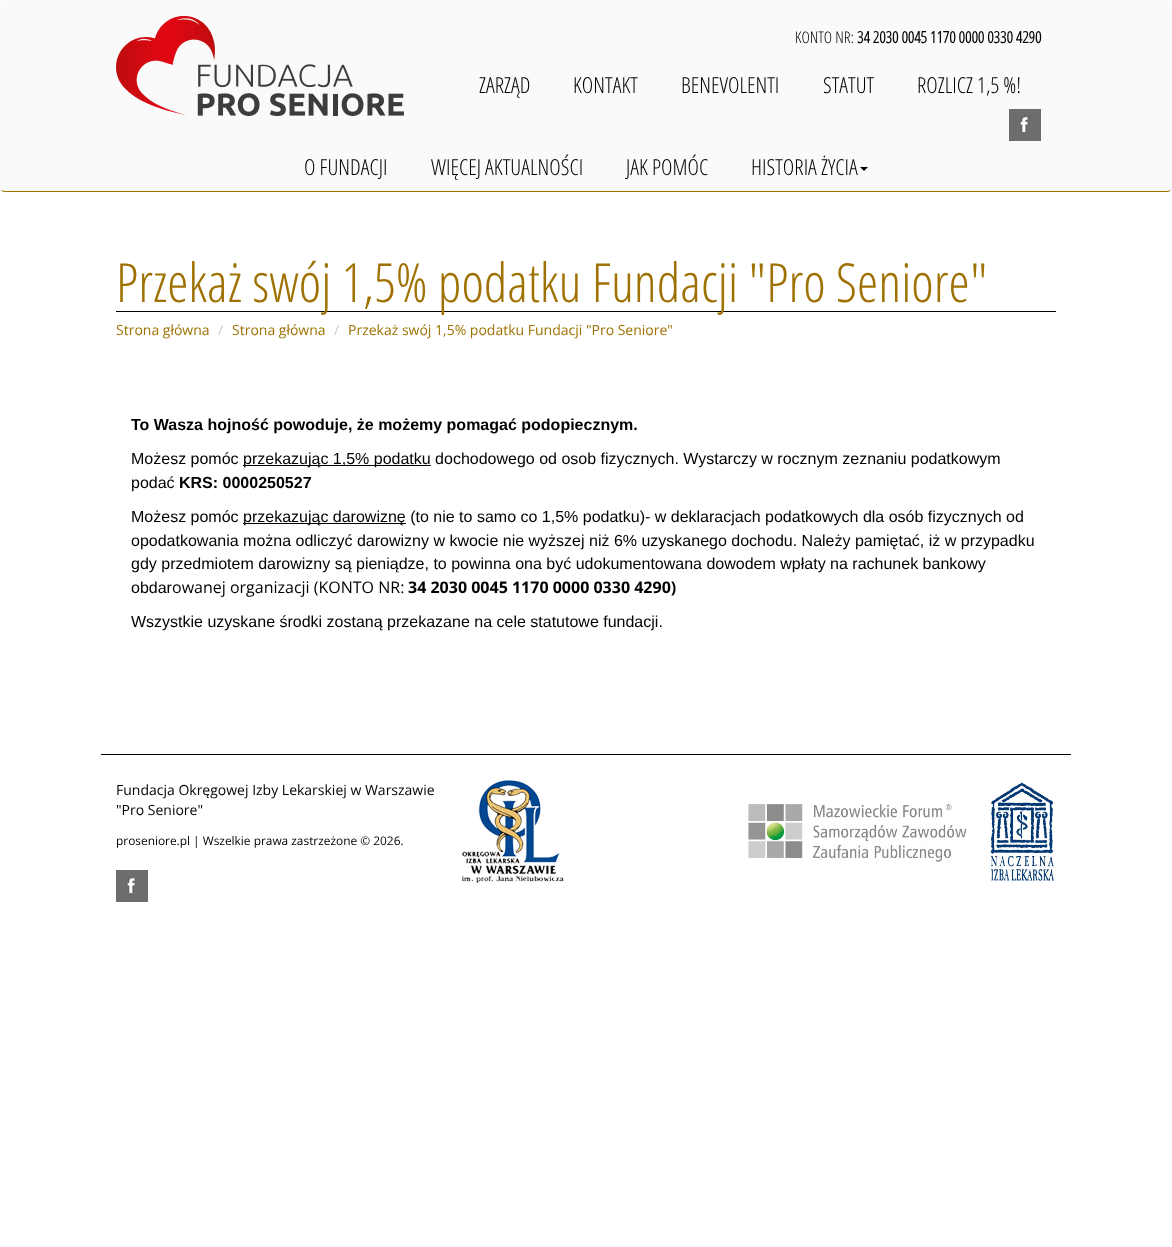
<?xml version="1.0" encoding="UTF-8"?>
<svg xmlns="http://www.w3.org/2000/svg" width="1172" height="1247">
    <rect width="100%" height="100%" fill="#FFFFFF"/>
    <rect x="0" y="0" width="1172" height="192" rx="4" fill="#FAFAFA"/>
    <path d="M 1170.5 190.5 L 1168 191.5 H 4 L 1.5 190.5" fill="none" stroke="#9F7102"/>
    <image x="116" y="16" width="288" height="100" href="img_01.png"/>
    <text x="795" y="43" font-family="Open Sans Condensed" font-size="16" font-weight="300" fill="#000000">KONTO NR:</text>
    <text x="857" y="43" font-family="Open Sans Condensed" font-size="16" font-weight="700" fill="#000000">34 2030 0045 1170 0000 0330 4290</text>
    <text x="479" y="93" font-family="Open Sans Condensed" font-size="22" font-weight="300" fill="#000000">ZARZĄD</text>
    <text x="573" y="93" font-family="Open Sans Condensed" font-size="22" font-weight="300" fill="#000000">KONTAKT</text>
    <text x="681" y="93" font-family="Open Sans Condensed" font-size="22" font-weight="300" fill="#000000">BENEVOLENTI</text>
    <text x="823" y="93" font-family="Open Sans Condensed" font-size="22" font-weight="300" fill="#000000">STATUT</text>
    <text x="917" y="93" font-family="Open Sans Condensed" font-size="22" font-weight="300" fill="#000000">ROZLICZ 1,5 %!</text>
    <image x="1009" y="109" width="32" height="32" href="img_02.png"/>
    <text x="304" y="175" font-family="Open Sans Condensed" font-size="22" font-weight="300" fill="#000000">O FUNDACJI</text>
    <text x="431" y="175" font-family="Open Sans Condensed" font-size="22" font-weight="300" fill="#000000">WIĘCEJ AKTUALNOŚCI</text>
    <text x="626" y="175" font-family="Open Sans Condensed" font-size="22" font-weight="300" fill="#000000">JAK POMÓC</text>
    <text x="751" y="175" font-family="Open Sans Condensed" font-size="22" font-weight="300" fill="#000000">HISTORIA ŻYCIA</text>
    <path d="M 860 167 H 868 L 864 171 Z" fill="#000000"/>
    <rect x="116" y="311" width="940" height="1" fill="#000000"/>
    <text x="116" y="302" font-family="Open Sans Condensed" font-size="54" font-weight="300" fill="#9F7102">Przekaż swój 1,5% podatku Fundacji "Pro Seniore"</text>
    <text x="116" y="335" font-family="Open Sans" font-size="14" fill="#9F7102">Strona główna</text>
    <text x="218" y="335" font-family="Open Sans" font-size="14" fill="#CCCCCC">/</text>
    <text x="232" y="335" font-family="Open Sans" font-size="14" fill="#9F7102">Strona główna</text>
    <text x="334" y="335" font-family="Open Sans" font-size="14" fill="#CCCCCC">/</text>
    <text x="348" y="335" font-family="Open Sans" font-size="14" fill="#9F7102">Przekaż swój 1,5% podatku Fundacji "Pro Seniore"</text>
    <text x="131" y="430" font-family="Liberation Sans" font-size="16" font-weight="700" fill="#000000">To Wasza hojność powoduje, że możemy pomagać podopiecznym.</text>
    <text x="131" y="464" font-family="Liberation Sans" font-size="16" fill="#000000">Możesz pomóc</text>
    <rect x="243" y="465" width="188" height="1" fill="#000000"/>
    <text x="243" y="464" font-family="Liberation Sans" font-size="16" fill="#000000">przekazując 1,5% podatku dochodowego od osob fizycznych. Wystarczy w rocznym zeznaniu podatkowym</text>
    <text x="131" y="488" font-family="Liberation Sans" font-size="16" fill="#000000">podać</text>
    <text x="179" y="488" font-family="Liberation Sans" font-size="16" font-weight="700" fill="#000000">KRS: 0000250527</text>
    <text x="131" y="522" font-family="Liberation Sans" font-size="16" fill="#000000">Możesz pomóc</text>
    <rect x="243" y="523" width="163" height="1" fill="#000000"/>
    <text x="243" y="522" font-family="Liberation Sans" font-size="16" fill="#000000">przekazując darowiznę (to nie to samo co 1,5% podatku)- w deklaracjach podatkowych dla osób fizycznych od</text>
    <text font-family="Liberation Sans" font-size="16" fill="#000000">
        <tspan x="131" y="546">opodatkowania można odliczyć darowizny w kwocie nie wyższej niż 6% uzyskanego dochodu. Należy pamiętać, iż w przypadku</tspan>
        <tspan x="131" y="569">gdy przedmiotem darowizny są pieniądze, to powinna ona być udokumentowana dowodem wpłaty na rachunek bankowy</tspan>
        <tspan x="131" y="593">obdar</tspan>
    </text>
    <text x="172" y="593" font-family="Open Sans" font-size="16" fill="#000000">owanej organizacji (KONTO NR:</text>
    <text x="408" y="593" font-family="Open Sans" font-size="16" font-weight="700" fill="#000000">34 2030 0045 1170 0000 0330 4290)</text>
    <text x="131" y="627" font-family="Liberation Sans" font-size="16" fill="#000000">Wszystkie uzyskane środki zostaną przekazane na cele statutowe fundacji.</text>
    <rect x="101" y="754" width="970" height="1" fill="#000000"/>
    <text font-family="Open Sans" font-size="14" fill="#000000">
        <tspan x="116" y="795">Fundacja Okręgowej Izby Lekarskiej w Warszawie</tspan>
        <tspan x="116" y="815">"Pro Seniore"</tspan>
    </text>
    <image x="462" y="780" width="102" height="103" href="img_03.png"/>
    <image x="748" y="804" width="219" height="58" href="img_04.png"/>
    <image x="989" y="782" width="66" height="99" href="img_05.png"/>
    <text x="116" y="845" font-family="Open Sans" font-size="11.9" fill="#000000">proseniore.pl | Wszelkie prawa zastrzeżone © 2026.</text>
    <image x="116" y="870" width="32" height="32" href="img_02.png"/>
</svg>
